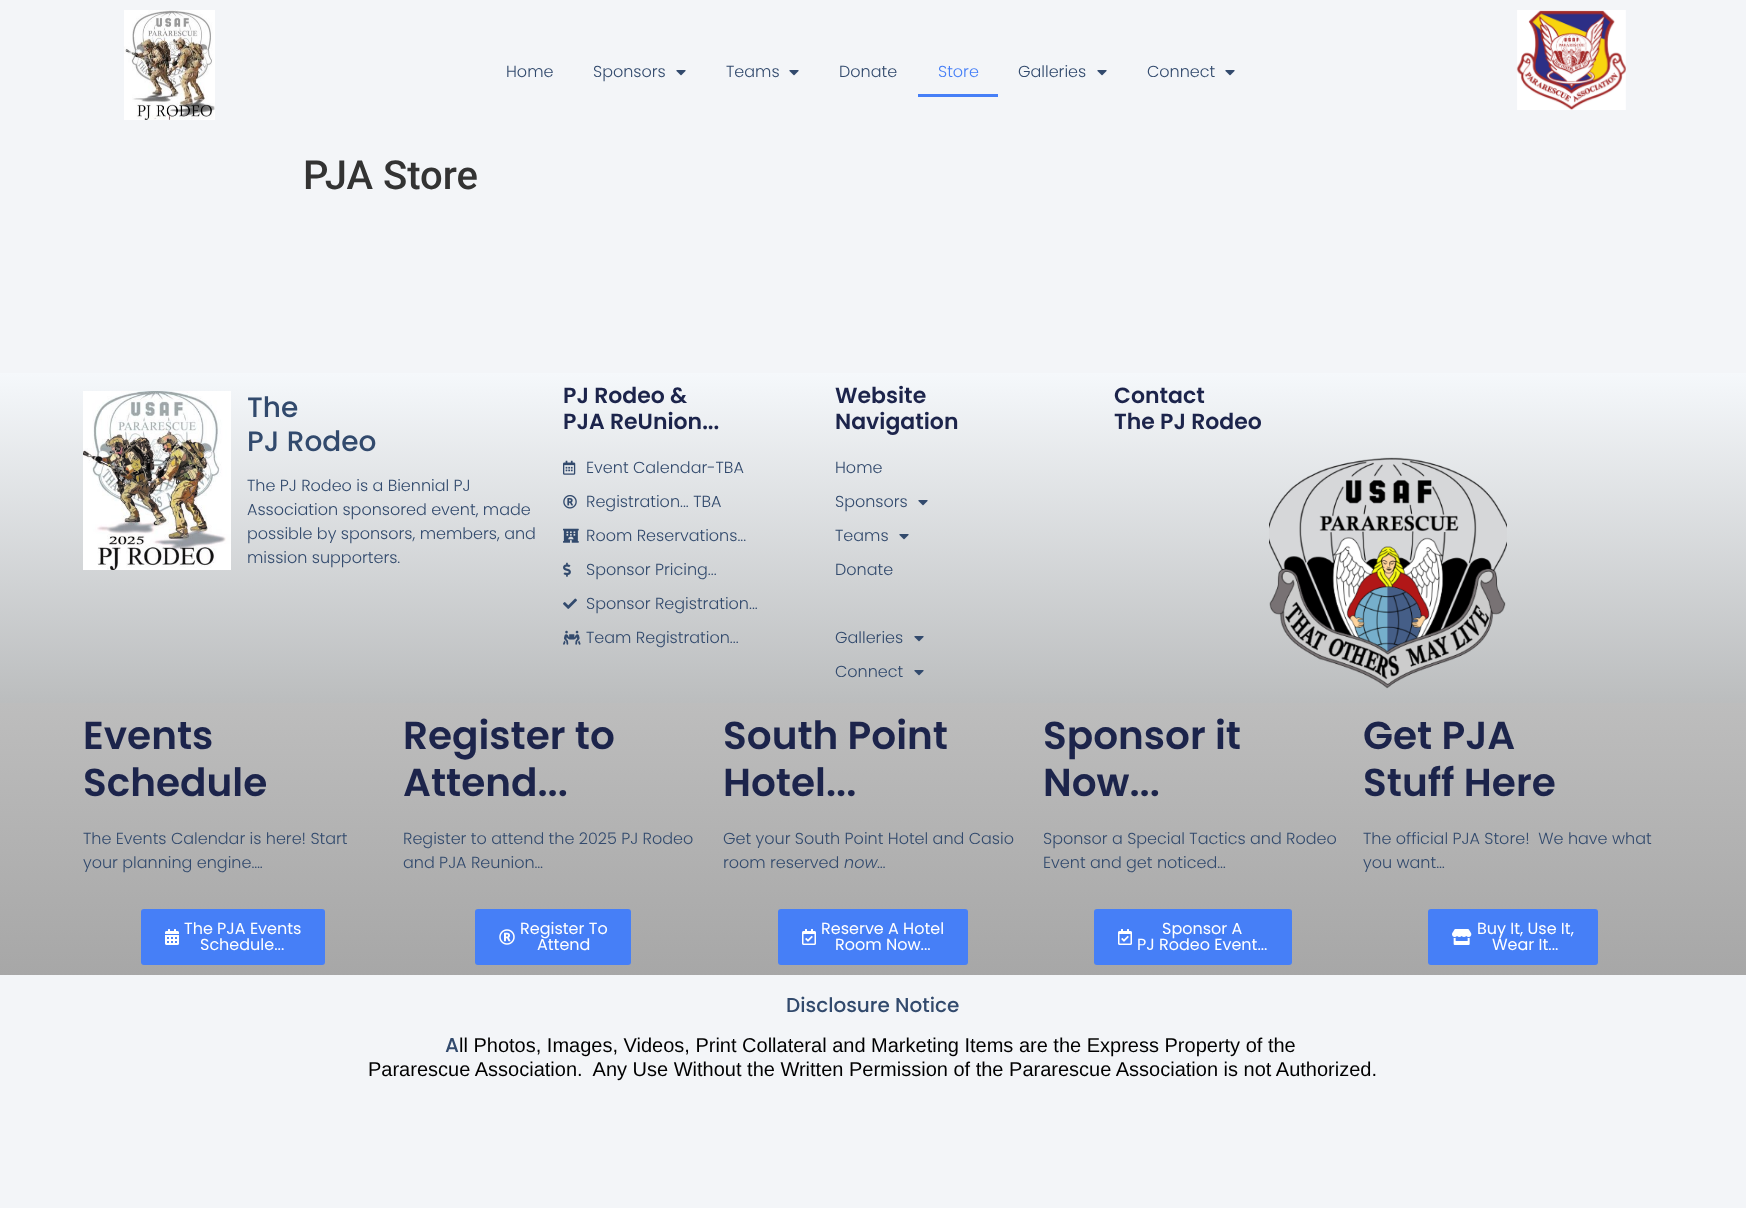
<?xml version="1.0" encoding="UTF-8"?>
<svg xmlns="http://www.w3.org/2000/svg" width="1746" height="1208">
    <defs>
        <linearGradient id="g1" gradientUnits="userSpaceOnUse" x1="873" y1="373" x2="873" y2="703"><stop offset="0" stop-color="#F5F8FB"/><stop offset="1" stop-color="#BBBDBE"/></linearGradient>
        <linearGradient id="g2" gradientUnits="userSpaceOnUse" x1="873" y1="703" x2="873" y2="975"><stop offset="0" stop-color="#BDBDBD"/><stop offset="1" stop-color="#A7A7A7"/></linearGradient>
    </defs>
    <rect width="100%" height="100%" fill="#F3F5F8"/>
    <image x="124" y="10" width="91" height="110" href="img_01.png"/>
    <text x="506" y="77" font-family="Poppins" font-size="16" font-weight="300" fill="#324A6D">Home</text>
    <text x="593" y="77" font-family="Poppins" font-size="16" font-weight="300" fill="#324A6D">Sponsors</text>
    <image x="676" y="70" width="10" height="6" href="img_02.png"/>
    <text x="726" y="77" font-family="Poppins" font-size="16" font-weight="300" fill="#324A6D">Teams</text>
    <image x="789" y="70" width="10" height="6" href="img_02.png"/>
    <text x="839" y="77" font-family="Poppins" font-size="16" font-weight="300" fill="#324A6D">Donate</text>
    <text x="938" y="77" font-family="Poppins" font-size="16" font-weight="300" fill="#467FF7">Store</text>
    <rect x="918" y="94" width="80" height="3" fill="#467FF7"/>
    <text x="1018" y="77" font-family="Poppins" font-size="16" font-weight="300" fill="#324A6D">Galleries</text>
    <image x="1097" y="70" width="10" height="6" href="img_02.png"/>
    <text x="1147" y="77" font-family="Poppins" font-size="16" font-weight="300" fill="#324A6D">Connect</text>
    <image x="1225" y="70" width="10" height="6" href="img_02.png"/>
    <image x="1516" y="10" width="110" height="100" href="img_03.png"/>
    <text x="303" y="189" font-family="Roboto" font-size="40" font-weight="500" fill="#333333">PJA Store</text>
    <rect x="0" y="373" width="1746" height="330" fill="url(#g1)"/>
    <image x="83" y="391" width="148" height="179" href="img_04.png"/>
    <text font-family="Poppins" font-size="28" font-weight="500" fill="#324A6D">
        <tspan x="247" y="417">The</tspan>
        <tspan x="247" y="451">PJ Rodeo</tspan>
    </text>
    <text font-family="Poppins" font-size="16" font-weight="300" fill="#324A6D">
        <tspan x="247" y="491">The PJ Rodeo is a Biennial PJ</tspan>
        <tspan x="247" y="515">Association sponsored event, made</tspan>
        <tspan x="247" y="539">possible by sponsors, members, and</tspan>
        <tspan x="247" y="563">mission supporters.</tspan>
    </text>
    <text font-family="Poppins" font-size="22" font-weight="600" fill="#1C244B">
        <tspan x="563" y="403">PJ Rodeo &amp;</tspan>
        <tspan x="563" y="429">PJA ReUnion...</tspan>
    </text>
    <image x="563" y="460" width="13" height="15" href="img_05.png"/>
    <text x="586" y="473" font-family="Poppins" font-size="16" font-weight="300" fill="#324A6D">Event Calendar-TBA</text>
    <image x="563" y="495" width="14" height="14" href="img_06.png"/>
    <text x="586" y="507" font-family="Poppins" font-size="16" font-weight="300" fill="#324A6D">Registration... TBA</text>
    <image x="563" y="528" width="16" height="15" href="img_07.png"/>
    <text x="586" y="541" font-family="Poppins" font-size="16" font-weight="300" fill="#324A6D">Room Reservations...</text>
    <image x="563" y="562" width="8" height="15" href="img_08.png"/>
    <text x="586" y="575" font-family="Poppins" font-size="16" font-weight="300" fill="#324A6D">Sponsor Pricing...</text>
    <image x="563" y="598" width="14" height="11" href="img_09.png"/>
    <text x="586" y="609" font-family="Poppins" font-size="16" font-weight="300" fill="#324A6D">Sponsor Registration...</text>
    <image x="563" y="630" width="18" height="15" href="img_10.png"/>
    <text x="586" y="643" font-family="Poppins" font-size="16" font-weight="300" fill="#324A6D">Team Registration...</text>
    <text font-family="Poppins" font-size="22" font-weight="600" fill="#1C244B">
        <tspan x="835" y="403">Website</tspan>
        <tspan x="835" y="429">Navigation</tspan>
    </text>
    <text x="835" y="473" font-family="Poppins" font-size="16" font-weight="300" fill="#324A6D">Home</text>
    <text x="835" y="507" font-family="Poppins" font-size="16" font-weight="300" fill="#324A6D">Sponsors</text>
    <image x="918" y="500" width="10" height="6" href="img_11.png"/>
    <text x="835" y="541" font-family="Poppins" font-size="16" font-weight="300" fill="#324A6D">Teams</text>
    <image x="899" y="534" width="10" height="6" href="img_12.png"/>
    <text x="835" y="575" font-family="Poppins" font-size="16" font-weight="300" fill="#324A6D">Donate</text>
    <text x="835" y="643" font-family="Poppins" font-size="16" font-weight="300" fill="#324A6D">Galleries</text>
    <image x="914" y="636" width="10" height="6" href="img_13.png"/>
    <text x="835" y="677" font-family="Poppins" font-size="16" font-weight="300" fill="#324A6D">Connect</text>
    <image x="914" y="670" width="10" height="6" href="img_14.png"/>
    <text font-family="Poppins" font-size="22" font-weight="600" fill="#1C244B">
        <tspan x="1114" y="403">Contact</tspan>
        <tspan x="1114" y="429">The PJ Rodeo</tspan>
    </text>
    <image x="1269" y="457" width="238" height="232" href="img_15.png"/>
    <rect x="0" y="703" width="1746" height="272" fill="url(#g2)"/>
    <text font-family="Poppins" font-size="39" font-weight="600" fill="#1C244B">
        <tspan x="83" y="749">Events</tspan>
        <tspan x="83" y="796">Schedule</tspan>
    </text>
    <text font-family="Poppins" font-size="16" font-weight="300" fill="#324A6D">
        <tspan x="83" y="844">The Events Calendar is here! Start</tspan>
        <tspan x="83" y="868">your planning engine….</tspan>
    </text>
    <rect x="141" y="909" width="184" height="56" rx="3" fill="#467FF7"/>
    <image x="165" y="929" width="14" height="16" href="img_16.png"/>
    <text x="184" y="934" font-family="Poppins" font-size="16" fill="#FFFFFF">The PJA Events</text>
    <text x="200" y="950" font-family="Poppins" font-size="16" fill="#FFFFFF">Schedule...</text>
    <text font-family="Poppins" font-size="39" font-weight="600" fill="#1C244B">
        <tspan x="403" y="749">Register to</tspan>
        <tspan x="403" y="796">Attend...</tspan>
    </text>
    <text font-family="Poppins" font-size="16" font-weight="300" fill="#324A6D">
        <tspan x="403" y="844">Register to attend the 2025 PJ Rodeo</tspan>
        <tspan x="403" y="868">and PJA Reunion…</tspan>
    </text>
    <rect x="475" y="909" width="156" height="56" rx="3" fill="#467FF7"/>
    <image x="499" y="929" width="16" height="16" href="img_17.png"/>
    <text x="520" y="934" font-family="Poppins" font-size="16" fill="#FFFFFF">Register To</text>
    <text x="537" y="950" font-family="Poppins" font-size="16" fill="#FFFFFF">Attend</text>
    <text font-family="Poppins" font-size="39" font-weight="600" fill="#1C244B">
        <tspan x="723" y="749">South Point</tspan>
        <tspan x="723" y="796">Hotel...</tspan>
    </text>
    <text font-family="Poppins" font-size="16" font-weight="300" fill="#324A6D">
        <tspan x="723" y="844">Get your South Point Hotel and Casio</tspan>
        <tspan x="723" y="868">room reserved</tspan>
    </text>
    <text x="844" y="868" font-family="Poppins" font-size="16" font-weight="300" font-style="italic" fill="#324A6D">now</text>
    <text x="877" y="868" font-family="Poppins" font-size="16" font-weight="300" fill="#324A6D">…</text>
    <rect x="778" y="909" width="190" height="56" rx="3" fill="#467FF7"/>
    <image x="802" y="929" width="14" height="16" href="img_18.png"/>
    <text x="821" y="934" font-family="Poppins" font-size="16" fill="#FFFFFF">Reserve A Hotel</text>
    <text x="835" y="950" font-family="Poppins" font-size="16" fill="#FFFFFF">Room Now...</text>
    <text font-family="Poppins" font-size="39" font-weight="600" fill="#1C244B">
        <tspan x="1043" y="749">Sponsor it</tspan>
        <tspan x="1043" y="796">Now...</tspan>
    </text>
    <text font-family="Poppins" font-size="16" font-weight="300" fill="#324A6D">
        <tspan x="1043" y="844">Sponsor a Special Tactics and Rodeo</tspan>
        <tspan x="1043" y="868">Event and get noticed…</tspan>
    </text>
    <rect x="1094" y="909" width="198" height="56" rx="3" fill="#467FF7"/>
    <image x="1118" y="929" width="14" height="16" href="img_18.png"/>
    <text x="1162" y="934" font-family="Poppins" font-size="16" fill="#FFFFFF">Sponsor A</text>
    <text x="1137" y="950" font-family="Poppins" font-size="16" fill="#FFFFFF">PJ Rodeo Event...</text>
    <text font-family="Poppins" font-size="39" font-weight="600" fill="#1C244B">
        <tspan x="1363" y="749">Get PJA</tspan>
        <tspan x="1363" y="796">Stuff Here</tspan>
    </text>
    <text font-family="Poppins" font-size="16" font-weight="300" fill="#324A6D" xml:space="preserve"><tspan x="1363" y="844">The official PJA Store!  We have what</tspan><tspan x="1363" y="868">you want…</tspan></text>
    <rect x="1428" y="909" width="170" height="56" rx="3" fill="#467FF7"/>
    <image x="1452" y="929" width="20" height="16" href="img_19.png"/>
    <text x="1477" y="934" font-family="Poppins" font-size="16" fill="#FFFFFF">Buy It, Use It,</text>
    <text x="1492" y="950" font-family="Poppins" font-size="16" fill="#FFFFFF">Wear It...</text>
    <text x="786" y="1012" font-family="Poppins" font-size="20" font-weight="500" fill="#324A6D">Disclosure Notice</text>
    <text x="445" y="1052" font-family="Poppins" font-size="20" font-weight="500" fill="#324A6D">A</text>
    <text x="459" y="1052" font-family="Liberation Sans" font-size="20" fill="#000000">ll Photos, Images, Videos, Print Collateral and Marketing Items are the Express Property of the</text>
    <text x="368" y="1076" font-family="Liberation Sans" font-size="20" fill="#000000" xml:space="preserve">Pararescue Association.  Any Use Without the Written Permission of the Pararescue Association is not Authorized.</text>
</svg>
